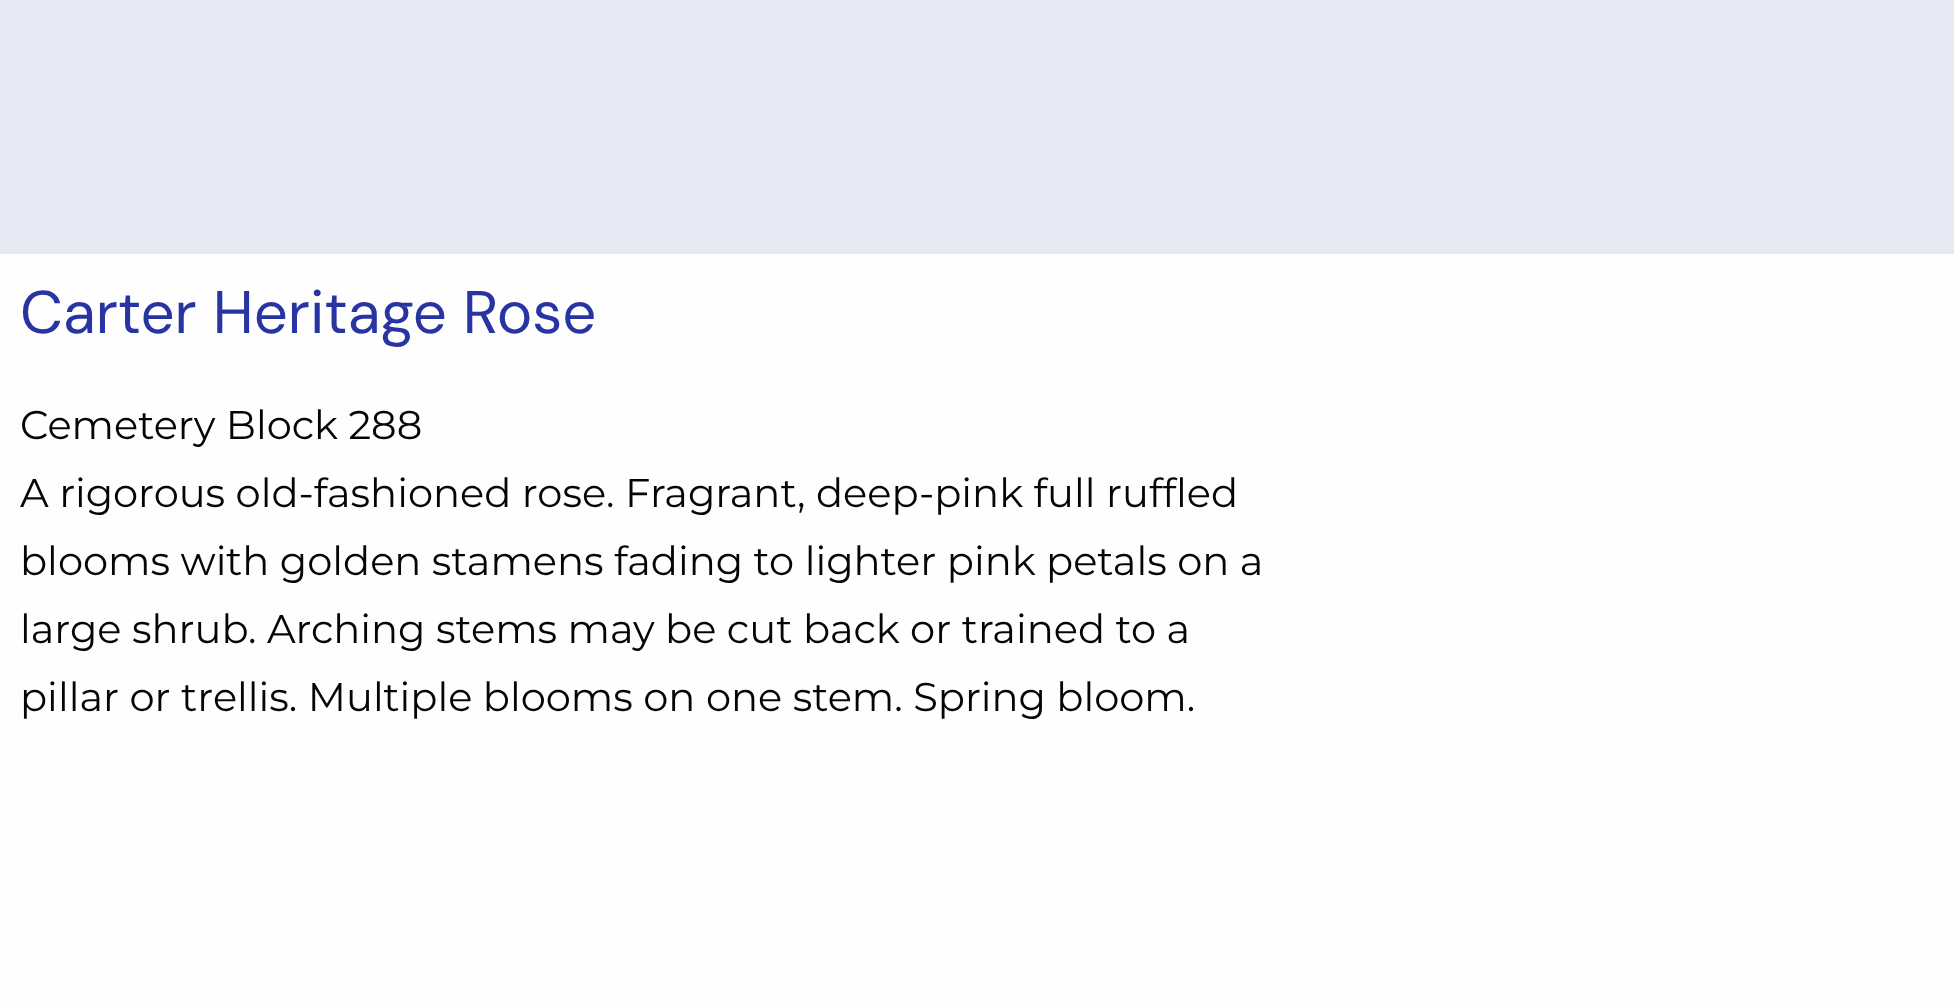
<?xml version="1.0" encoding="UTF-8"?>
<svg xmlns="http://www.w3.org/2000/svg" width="1954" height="1002">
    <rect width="100%" height="100%" fill="#E4E9F4"/>
    <rect x="0" y="254" width="1954" height="748" fill="#FEFEFE"/>
    <text x="20" y="333" font-family="DM Sans" font-size="60" fill="#2834A1">Carter Heritage Rose</text>
    <text font-family="Montserrat" font-size="40" fill="#050505">
        <tspan x="20" y="439">Cemetery Block 288</tspan>
        <tspan x="20" y="507">A rigorous old-fashioned rose. Fragrant, deep-pink full ruffled</tspan>
        <tspan x="20" y="575">blooms with golden stamens fading to lighter pink petals on a</tspan>
        <tspan x="20" y="643">large shrub. Arching stems may be cut back or trained to a</tspan>
        <tspan x="20" y="711">pillar or trellis. Multiple blooms on one stem. Spring bloom.</tspan>
    </text>
</svg>
